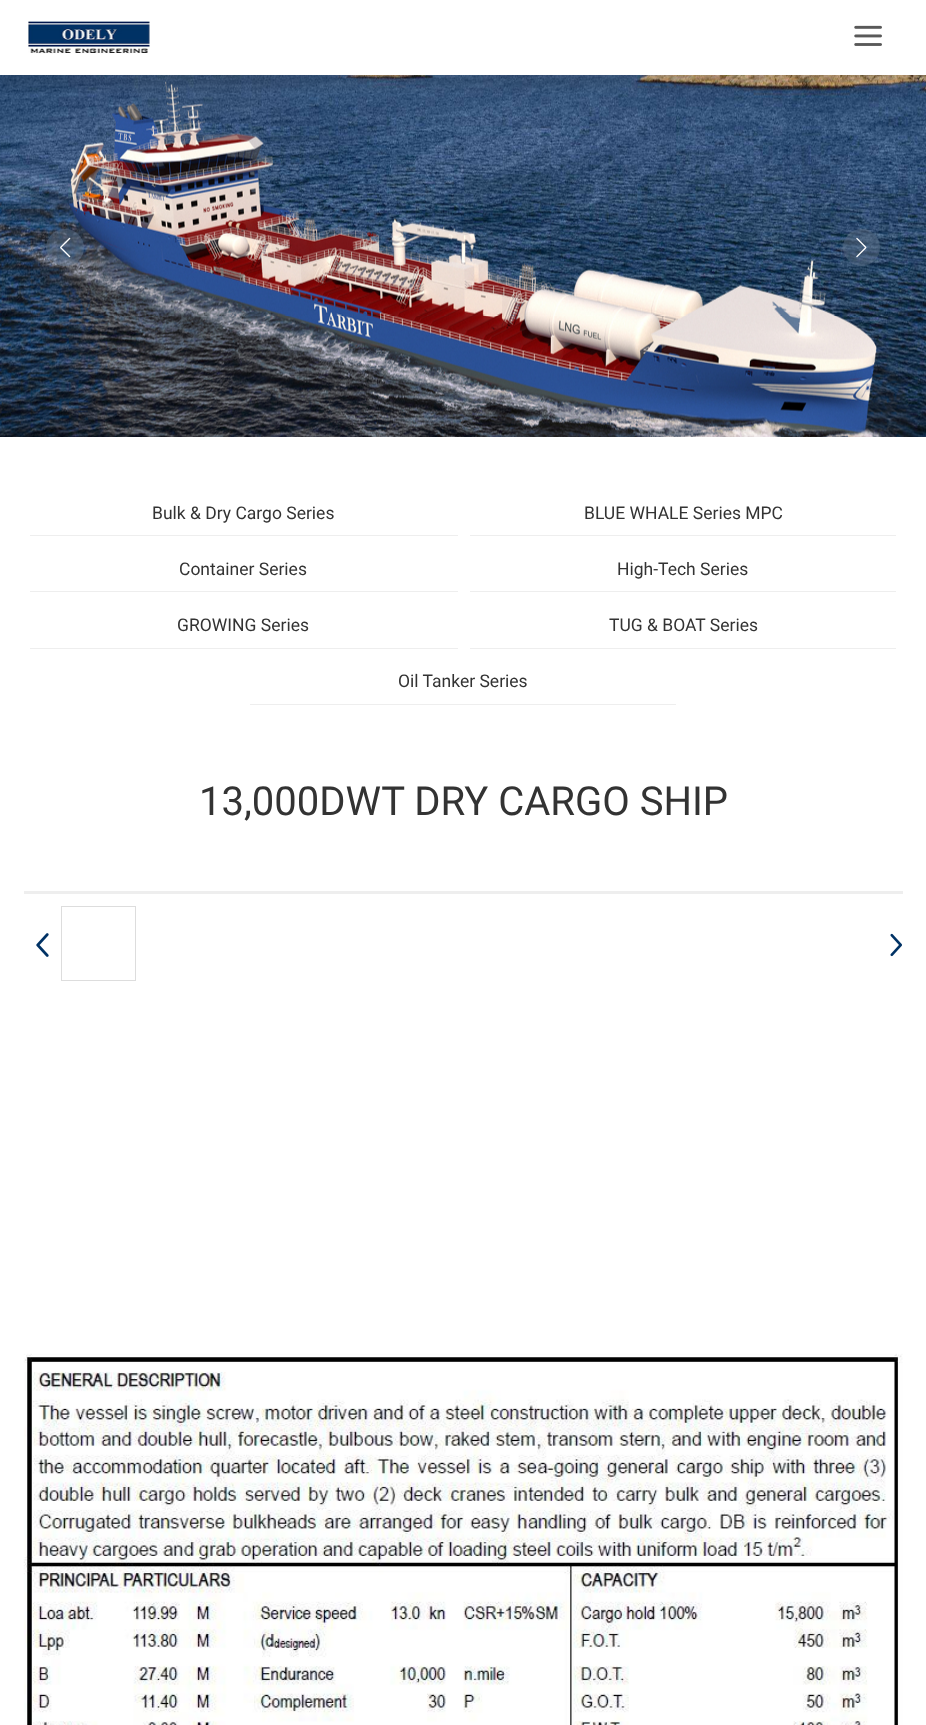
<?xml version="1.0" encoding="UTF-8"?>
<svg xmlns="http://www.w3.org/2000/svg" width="926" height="1725">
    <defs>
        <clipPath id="clip1"><rect x="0" y="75" width="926" height="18"/></clipPath>
        <filter id="blur1" x="-50%" y="-200%" width="200%" height="500%"><feGaussianBlur stdDeviation="6"/></filter>
    </defs>
    <rect width="100%" height="100%" fill="#FFFFFF"/>
    <image x="0" y="75" width="926" height="362" href="img_03.png"/>
    <g clip-path="url(#clip1)">
        <rect x="0" y="13" width="926" height="75" fill="#000000" fill-opacity="0.1" filter="url(#blur1)"/>
    </g>
    <image x="28" y="21" width="122" height="33" href="img_01.png"/>
    <image x="854" y="25" width="28" height="21" href="img_02.png"/>
    <rect x="46" y="229" width="38" height="37" rx="18.5" fill="#5B7088" fill-opacity="0.5"/>
    <image x="60" y="237" width="11" height="21" href="img_04.png"/>
    <circle cx="861.5" cy="247.5" r="18.5" fill="#5B7088" fill-opacity="0.5"/>
    <image x="856" y="237" width="11" height="21" href="img_05.png"/>
    <rect x="30" y="535" width="428" height="1" fill="#EEEEEE"/>
    <text x="152" y="519" font-family="Roboto" font-size="17.5" fill="#333333">Bulk &amp; Dry Cargo Series</text>
    <rect x="470" y="535" width="426" height="1" fill="#EEEEEE"/>
    <text x="584" y="519" font-family="Roboto" font-size="17.5" fill="#333333">BLUE WHALE Series MPC</text>
    <rect x="30" y="591" width="428" height="1" fill="#EEEEEE"/>
    <text x="179" y="575" font-family="Roboto" font-size="17.5" fill="#333333">Container Series</text>
    <rect x="470" y="591" width="426" height="1" fill="#EEEEEE"/>
    <text x="617" y="575" font-family="Roboto" font-size="17.5" fill="#333333">High-Tech Series</text>
    <rect x="30" y="648" width="428" height="1" fill="#EEEEEE"/>
    <text x="177" y="631" font-family="Roboto" font-size="17.5" fill="#333333">GROWING Series</text>
    <rect x="470" y="648" width="426" height="1" fill="#EEEEEE"/>
    <text x="609" y="631" font-family="Roboto" font-size="17.5" fill="#333333">TUG &amp; BOAT Series</text>
    <rect x="250" y="704" width="426" height="1" fill="#EEEEEE"/>
    <text x="398" y="687" font-family="Roboto" font-size="17.5" fill="#333333">Oil Tanker Series</text>
    <text x="199" y="815" font-family="Roboto" font-size="40" fill="#333333">13,000DWT DRY CARGO SHIP</text>
    <rect x="24" y="891" width="879" height="3" fill="#EEEEEE"/>
    <rect x="61.5" y="906.5" width="74" height="74" fill="none" stroke="#DDDDDD"/>
    <image x="36" y="933" width="13" height="24" href="img_06.png"/>
    <image x="890" y="933" width="12" height="24" href="img_07.png"/>
    <image x="23" y="1353" width="880" height="372" href="img_08.png"/>
</svg>
